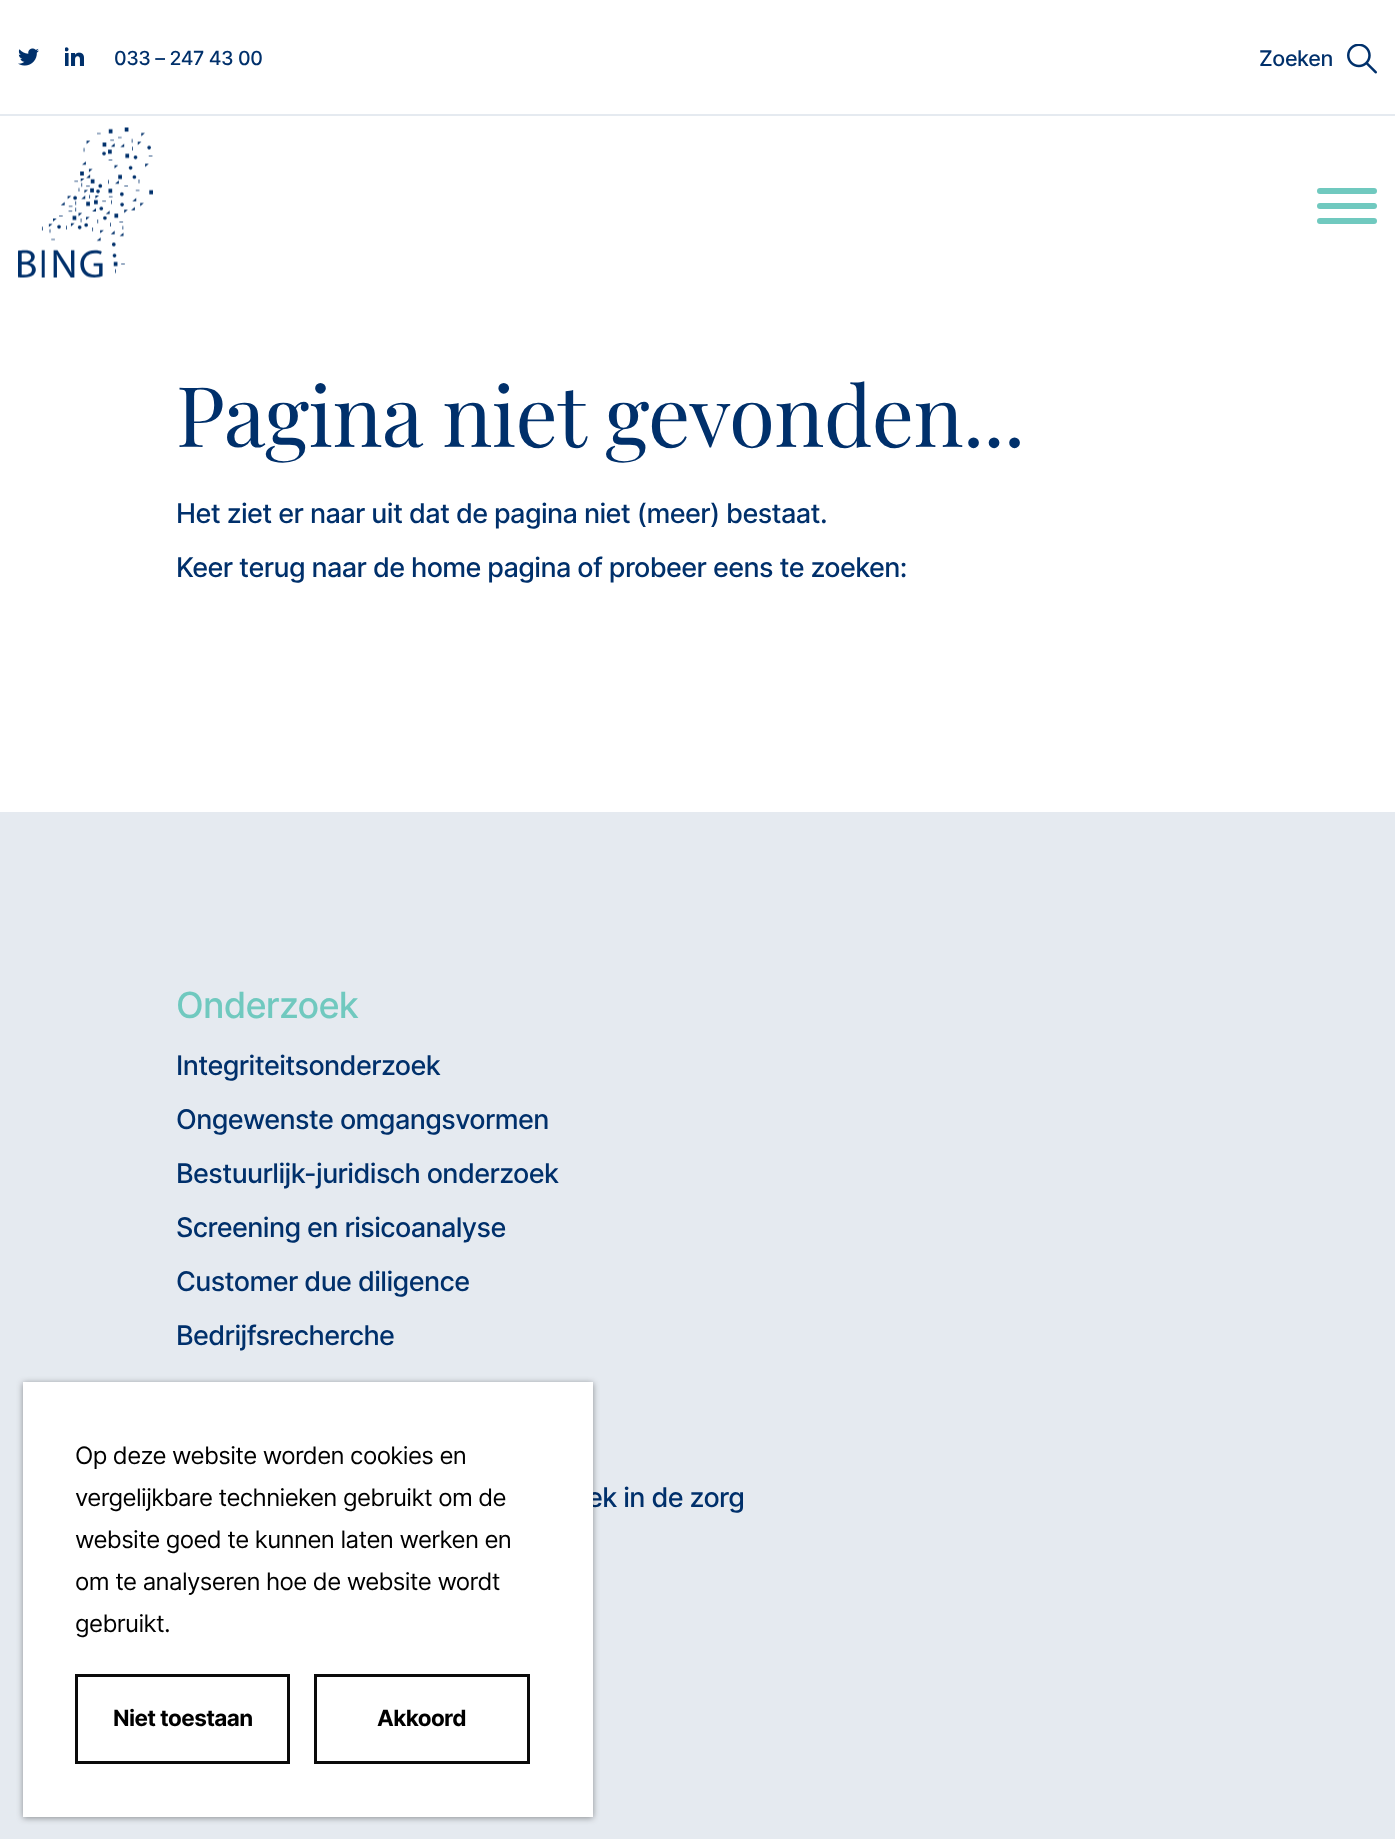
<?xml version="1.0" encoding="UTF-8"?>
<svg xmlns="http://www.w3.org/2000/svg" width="1395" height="1839">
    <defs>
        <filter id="blur1" x="-50%" y="-200%" width="200%" height="500%"><feGaussianBlur stdDeviation="3"/></filter>
    </defs>
    <rect width="100%" height="100%" fill="#FFFFFF"/>
    <rect x="0" y="114" width="1395" height="2" fill="#E5EAF0"/>
    <image x="18" y="48" width="21" height="18" href="img_01.png"/>
    <image x="65" y="47" width="19" height="19" href="img_02.png"/>
    <text x="114" y="65" font-family="Inter" font-size="19.5" font-weight="500" letter-spacing="-0.4" fill="#00306B">033 – 247 43 00</text>
    <image x="1347" y="44" width="30" height="30" href="img_03.png"/>
    <text x="1259" y="66" font-family="Inter" font-size="21.5" font-weight="500" letter-spacing="-0.4" fill="#00306B">Zoeken</text>
    <image x="18" y="127" width="135" height="151" href="img_04.png"/>
    <rect x="1317" y="188" width="60" height="6" rx="3" fill="#70C9BF"/>
    <rect x="1317" y="203" width="60" height="6" rx="3" fill="#70C9BF"/>
    <rect x="1317" y="218" width="60" height="6" rx="3" fill="#70C9BF"/>
    <text x="176" y="447" font-family="Playfair Display" font-size="83.75" letter-spacing="-0.6" fill="#00306B">Pagina niet gevonden...</text>
    <text x="176" y="523" font-family="Inter" font-size="27" font-weight="500" letter-spacing="-0.6" fill="#00306B">Het ziet er naar uit dat de pagina niet (meer) bestaat.</text>
    <text x="176" y="577" font-family="Inter" font-size="27" font-weight="500" letter-spacing="-0.6" fill="#00306B">Keer terug naar de home pagina of probeer eens te zoeken:</text>
    <rect x="0" y="812" width="1395" height="1027" fill="#E5EAF0"/>
    <text x="176" y="1018" font-family="Inter" font-size="36" font-weight="500" letter-spacing="-0.75" fill="#70C9BF">Onderzoek</text>
    <text x="176" y="1075" font-family="Inter" font-size="27" font-weight="500" letter-spacing="-0.6" fill="#00306B">Integriteitsonderzoek</text>
    <text x="176" y="1129" font-family="Inter" font-size="27" font-weight="500" letter-spacing="-0.6" fill="#00306B">Ongewenste omgangsvormen</text>
    <text x="176" y="1183" font-family="Inter" font-size="27" font-weight="500" letter-spacing="-0.6" fill="#00306B">Bestuurlijk-juridisch onderzoek</text>
    <text x="176" y="1237" font-family="Inter" font-size="27" font-weight="500" letter-spacing="-0.6" fill="#00306B">Screening en risicoanalyse</text>
    <text x="176" y="1291" font-family="Inter" font-size="27" font-weight="500" letter-spacing="-0.6" fill="#00306B">Customer due diligence</text>
    <text x="176" y="1345" font-family="Inter" font-size="27" font-weight="500" letter-spacing="-0.6" fill="#00306B">Bedrijfsrecherche</text>
    <text x="587" y="1507" font-family="Inter" font-size="27" font-weight="500" letter-spacing="-0.6" fill="#00306B">ek in de zorg</text>
    <rect x="23" y="1383" width="570" height="435" fill="#000000" fill-opacity="0.4" filter="url(#blur1)"/>
    <rect x="23" y="1382" width="570" height="435" fill="#FFFFFF"/>
    <text font-family="Inter" font-size="24" letter-spacing="-0.6" fill="#000000">
        <tspan x="75" y="1464">Op deze website worden cookies en</tspan>
        <tspan x="75" y="1506">vergelijkbare technieken gebruikt om de</tspan>
        <tspan x="75" y="1548">website goed te kunnen laten werken en</tspan>
        <tspan x="75" y="1590">om te analyseren hoe de website wordt</tspan>
        <tspan x="75" y="1632">gebruikt.</tspan>
    </text>
    <rect x="76.5" y="1675.5" width="212" height="87" fill="none" stroke="#0A0A0A" stroke-width="3"/>
    <text x="113" y="1726" font-family="Inter" font-size="22.5" font-weight="700" letter-spacing="-0.6" fill="#000000">Niet toestaan</text>
    <rect x="315.5" y="1675.5" width="213" height="87" fill="none" stroke="#0A0A0A" stroke-width="3"/>
    <text x="377" y="1726" font-family="Inter" font-size="22.5" font-weight="700" letter-spacing="-0.6" fill="#000000">Akkoord</text>
</svg>
